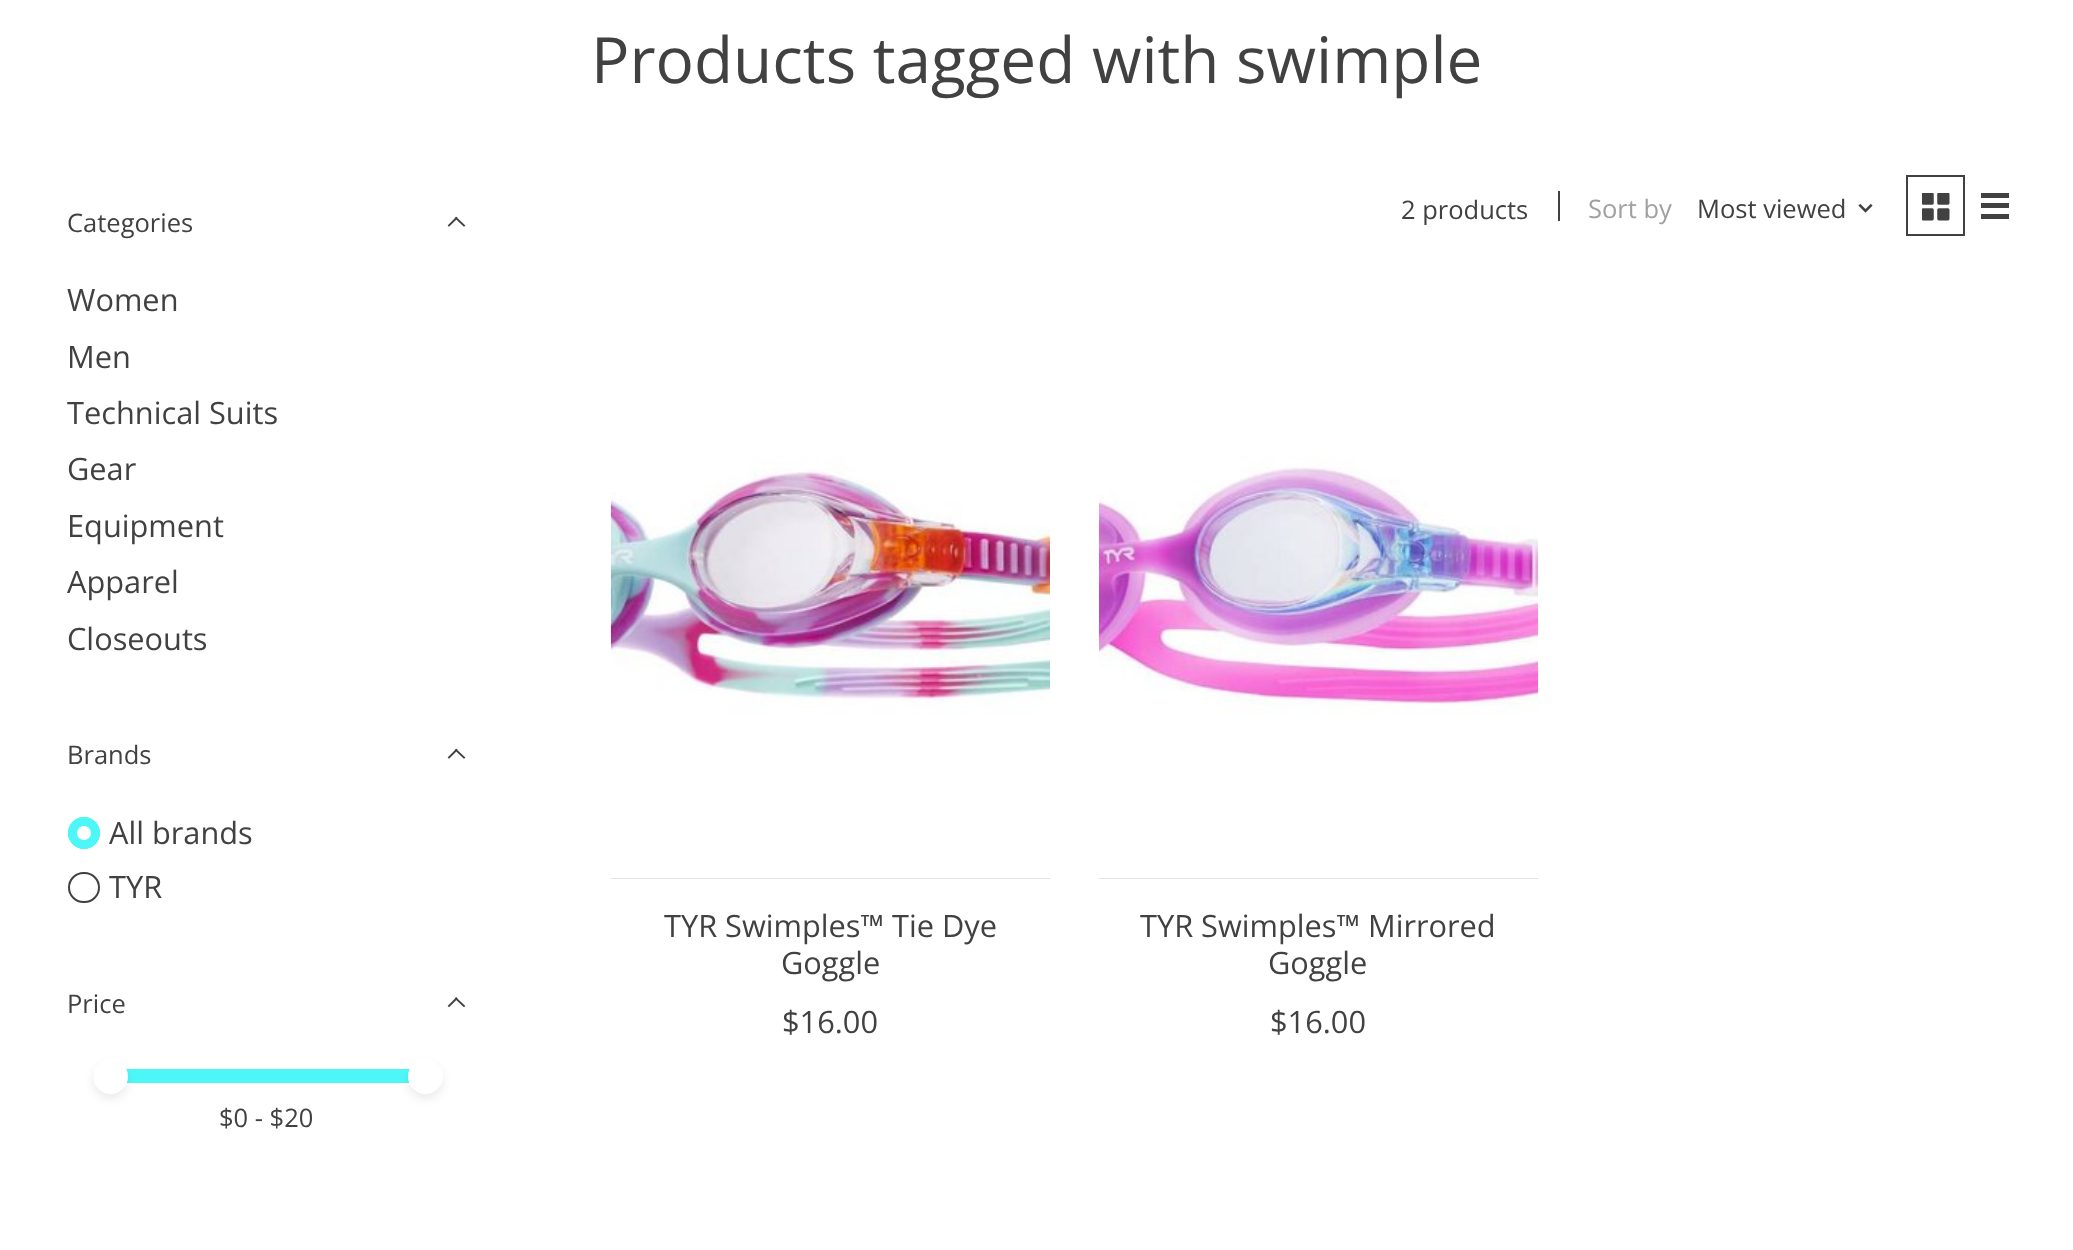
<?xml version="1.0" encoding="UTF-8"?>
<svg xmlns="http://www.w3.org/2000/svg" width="2073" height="1250">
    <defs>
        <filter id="blur1" x="-50%" y="-200%" width="200%" height="500%"><feGaussianBlur stdDeviation="5"/></filter>
    </defs>
    <rect width="100%" height="100%" fill="#FFFFFF"/>
    <text x="591" y="83" font-family="Open Sans" font-size="63.9" fill="#414141">Products tagged with swimple</text>
    <text x="67" y="232" font-family="Open Sans" font-size="25.5" fill="#414141">Categories</text>
    <path d="M 449 225.5 L 456.5 218 M 464 225.5 L 456 218" fill="none" stroke="#414141" stroke-width="1.9" stroke-linecap="square"/>
    <text font-family="Open Sans" font-size="30.75" fill="#414141">
        <tspan x="67" y="311">Women</tspan>
        <tspan x="67" y="368">Men</tspan>
        <tspan x="67" y="424">Technical Suits</tspan>
        <tspan x="67" y="480">Gear</tspan>
        <tspan x="67" y="537">Equipment</tspan>
        <tspan x="67" y="593">Apparel</tspan>
        <tspan x="67" y="650">Closeouts</tspan>
    </text>
    <text x="67" y="764" font-family="Open Sans" font-size="25.5" fill="#414141">Brands</text>
    <path d="M 449 757.5 L 456.5 750 M 464 757.5 L 456 750" fill="none" stroke="#414141" stroke-width="1.9" stroke-linecap="square"/>
    <circle cx="84" cy="833" r="16" fill="#4EF7F7"/>
    <circle cx="84" cy="833" r="7" fill="#FFFFFF"/>
    <circle cx="84" cy="833" r="15" fill="none" stroke="#4EF7F7" stroke-width="2"/>
    <text x="109" y="844" font-family="Open Sans" font-size="30.75" fill="#414141">All brands</text>
    <rect x="69" y="873" width="30" height="29" rx="14.5" fill="none" stroke="#414141" stroke-width="2"/>
    <text x="109" y="898" font-family="Open Sans" font-size="30.75" fill="#414141">TYR</text>
    <text x="67" y="1013" font-family="Open Sans" font-size="25.5" fill="#414141">Price</text>
    <path d="M 449 1006 L 456.5 998.5 M 464 1006 L 456 998.5" fill="none" stroke="#414141" stroke-width="1.9" stroke-linecap="square"/>
    <path d="M 100 1069 H 425 V 1083 H 100 C 96 1083 93 1080 93 1076 C 93 1072 96 1069 100 1069 Z" fill="#4EF7F7"/>
    <rect x="93" y="1064" width="35" height="35" rx="17.5" fill="#000000" fill-opacity="0.08" filter="url(#blur1)"/>
    <circle cx="110.5" cy="1076.5" r="17.5" fill="#FFFFFF"/>
    <rect x="408" y="1064" width="35" height="35" rx="17.5" fill="#000000" fill-opacity="0.08" filter="url(#blur1)"/>
    <circle cx="425.5" cy="1076.5" r="17.5" fill="#FFFFFF"/>
    <text x="219" y="1127" font-family="Open Sans" font-size="25.5" fill="#414141">$0 - $20</text>
    <text x="1401" y="219" font-family="Open Sans" font-size="25.5" fill="#414141">2 products</text>
    <rect x="1558" y="191" width="2" height="30" fill="#414141"/>
    <text x="1588" y="218" font-family="Open Sans" font-size="25.5" fill="#A0A0A0">Sort by</text>
    <text x="1697" y="218" font-family="Open Sans" font-size="25.5" fill="#414141">Most viewed</text>
    <image x="1858" y="203" width="15" height="10" href="img_01.png"/>
    <rect x="1907" y="176" width="57" height="59" fill="none" stroke="#414141" stroke-width="2"/>
    <image x="1922" y="193" width="28" height="28" href="img_02.png"/>
    <rect x="1981" y="193" width="28" height="5" fill="#414141"/>
    <rect x="1981" y="203" width="28" height="5" fill="#414141"/>
    <rect x="1981" y="214" width="28" height="5" fill="#414141"/>
    <rect x="611" y="878" width="439" height="1" fill="#E3E3E3"/>
    <image x="610" y="294" width="440" height="584" href="img_03.png"/>
    <text x="664" y="937" font-family="Open Sans" font-size="30.75" fill="#414141">TYR Swimples™ Tie Dye</text>
    <text x="781" y="974" font-family="Open Sans" font-size="30.75" fill="#414141">Goggle</text>
    <text x="782" y="1033" font-family="Open Sans" font-size="30.75" fill="#414141">$16.00</text>
    <rect x="1099" y="878" width="439" height="1" fill="#E3E3E3"/>
    <image x="1099" y="294" width="440" height="584" href="img_04.png"/>
    <text x="1140" y="937" font-family="Open Sans" font-size="30.75" fill="#414141">TYR Swimples™ Mirrored</text>
    <text x="1268" y="974" font-family="Open Sans" font-size="30.75" fill="#414141">Goggle</text>
    <text x="1270" y="1033" font-family="Open Sans" font-size="30.75" fill="#414141">$16.00</text>
</svg>
